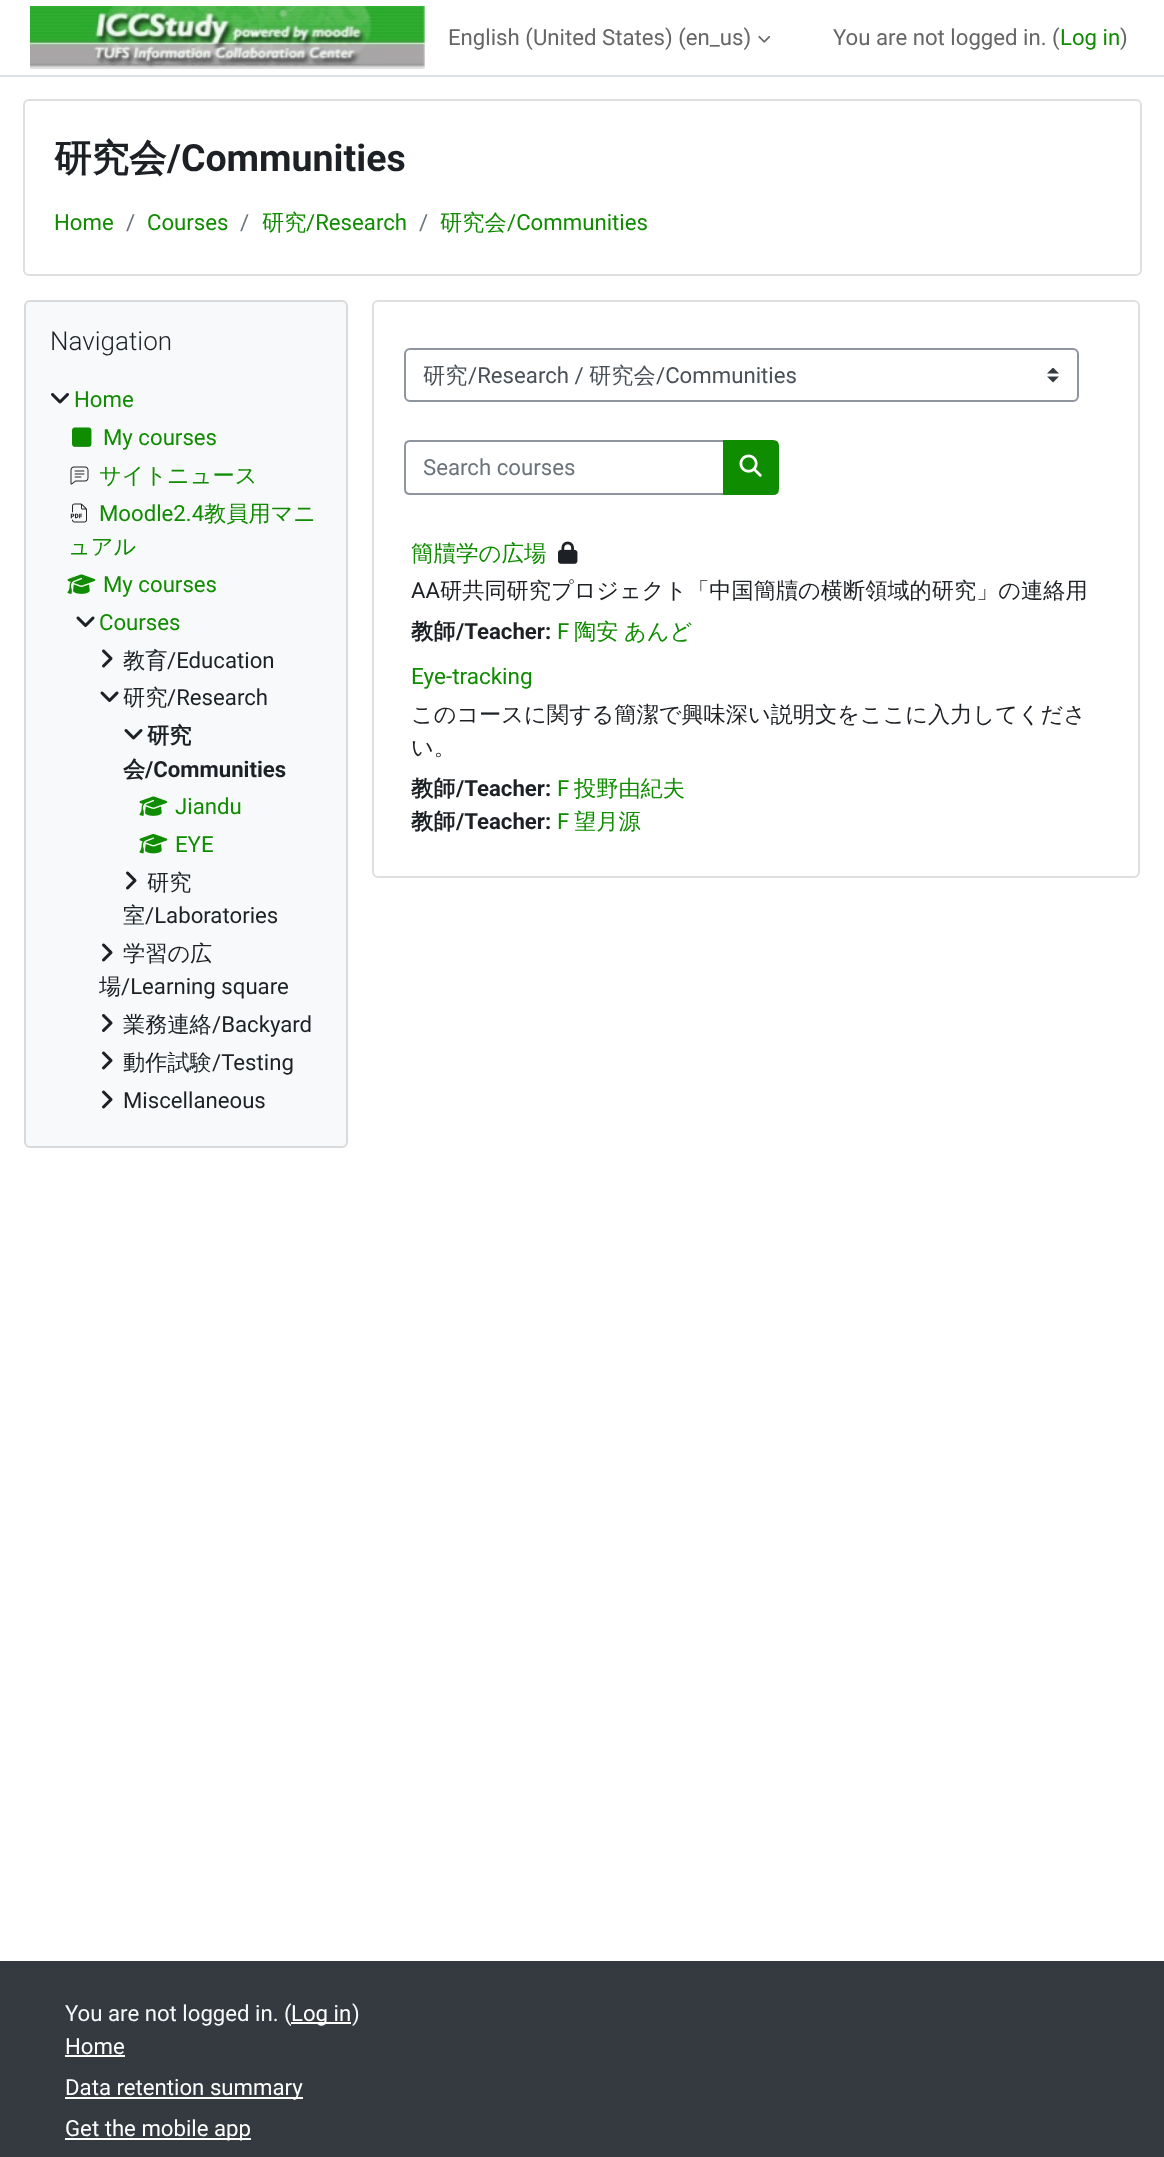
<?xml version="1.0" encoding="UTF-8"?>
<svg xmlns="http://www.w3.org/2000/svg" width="1164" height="2157">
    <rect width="100%" height="100%" fill="#FFFFFF"/>
    <rect x="0" y="75" width="1164" height="2" fill="#DEE2E6"/>
    <image x="30" y="6" width="395" height="63" href="img_01.png"/>
    <text x="448" y="45" font-family="Roboto" font-size="22.2" fill="#666666">English (United States) (en_us)</text>
    <image x="758" y="36" width="13" height="7" href="img_02.png"/>
    <text x="833" y="45" font-family="Roboto" font-size="22.2" fill="#666666">You are not logged in. (</text>
    <text x="1060" y="45" font-family="Roboto" font-size="22.2" fill="#108C00">Log in</text>
    <text x="1120" y="45" font-family="Roboto" font-size="22.2" fill="#666666">)</text>
    <rect x="24" y="100" width="1117" height="175" rx="5" fill="none" stroke="#DFDFDF" stroke-width="2"/>
    <text x="54" y="171" font-family="WenQuanYi Zen Hei" font-size="37.5" font-weight="700" fill="#1D2125">研究会</text>
    <text x="167" y="171" font-family="Roboto" font-size="37.5" font-weight="700" fill="#1D2125">/Communities</text>
    <text x="54" y="230" font-family="Roboto" font-size="22.2" fill="#108C00">Home</text>
    <text x="126" y="230" font-family="Roboto" font-size="22.2" fill="#6A737B">/</text>
    <text x="147" y="230" font-family="Roboto" font-size="22.2" fill="#108C00">Courses</text>
    <text x="240" y="230" font-family="Roboto" font-size="22.2" fill="#6A737B">/</text>
    <text x="262" y="230" font-family="WenQuanYi Zen Hei" font-size="22.2" font-weight="500" fill="#108C00">研究</text>
    <text x="306" y="230" font-family="Roboto" font-size="22.2" fill="#108C00">/Research</text>
    <text x="419" y="230" font-family="Roboto" font-size="22.2" fill="#6A737B">/</text>
    <text x="440" y="230" font-family="WenQuanYi Zen Hei" font-size="22.2" font-weight="500" fill="#108C00">研究会</text>
    <text x="507" y="230" font-family="Roboto" font-size="22.2" fill="#108C00">/Communities</text>
    <rect x="25" y="301" width="322" height="846" rx="5" fill="#F8F9FA" stroke="#D9DADB" stroke-width="2"/>
    <text x="50" y="350" font-family="Roboto" font-size="26" font-weight="300" fill="#1D2125">Navigation</text>
    <image x="51" y="393" width="18" height="11" href="img_03.png"/>
    <text x="74" y="407" font-family="Roboto" font-size="22.2" fill="#108C00">Home</text>
    <image x="72" y="427" width="20" height="20" href="img_04.png"/>
    <text x="103" y="445" font-family="Roboto" font-size="22.2" fill="#108C00">My courses</text>
    <image x="70" y="466" width="19" height="19" href="img_05.png"/>
    <text x="99" y="483" font-family="WenQuanYi Zen Hei" font-size="22.2" font-weight="500" fill="#108C00">サイトニュース</text>
    <image x="70" y="503" width="17" height="20" href="img_06.png"/>
    <text x="99" y="521" font-family="Roboto" font-size="22.2" fill="#108C00">Moodle2.4</text>
    <text x="204" y="521" font-family="WenQuanYi Zen Hei" font-size="22.2" font-weight="500" fill="#108C00">教員用マニ</text>
    <text x="68" y="554" font-family="WenQuanYi Zen Hei" font-size="22.2" font-weight="500" fill="#108C00">ュアル</text>
    <image x="67" y="574" width="29" height="20" href="img_07.png"/>
    <text x="103" y="592" font-family="Roboto" font-size="22.2" fill="#108C00">My courses</text>
    <image x="76" y="616" width="19" height="11" href="img_08.png"/>
    <text x="99" y="630" font-family="Roboto" font-size="22.2" fill="#108C00">Courses</text>
    <image x="102" y="649" width="11" height="19" href="img_09.png"/>
    <text x="123" y="668" font-family="WenQuanYi Zen Hei" font-size="22.2" font-weight="500" fill="#1D2125">教育</text>
    <text x="167" y="668" font-family="Roboto" font-size="22.2" fill="#1D2125">/Education</text>
    <image x="100" y="691" width="19" height="11" href="img_08.png"/>
    <text x="123" y="705" font-family="WenQuanYi Zen Hei" font-size="22.2" font-weight="500" fill="#1D2125">研究</text>
    <text x="167" y="705" font-family="Roboto" font-size="22.2" fill="#1D2125">/Research</text>
    <image x="124" y="729" width="19" height="11" href="img_10.png"/>
    <text x="147" y="743" font-family="WenQuanYi Zen Hei" font-size="22.2" font-weight="700" fill="#1D2125">研究</text>
    <text x="123" y="777" font-family="WenQuanYi Zen Hei" font-size="22.2" font-weight="700" fill="#1D2125">会</text>
    <text x="145" y="777" font-family="Roboto" font-size="22.2" font-weight="700" fill="#1D2125">/Communities</text>
    <image x="139" y="796" width="29" height="20" href="img_07.png"/>
    <text x="175" y="814" font-family="Roboto" font-size="22.2" fill="#108C00">Jiandu</text>
    <image x="139" y="834" width="29" height="20" href="img_11.png"/>
    <text x="175" y="852" font-family="Roboto" font-size="22.2" fill="#108C00">EYE</text>
    <image x="126" y="871" width="11" height="19" href="img_09.png"/>
    <text x="147" y="890" font-family="WenQuanYi Zen Hei" font-size="22.2" font-weight="500" fill="#1D2125">研究</text>
    <text x="123" y="923" font-family="WenQuanYi Zen Hei" font-size="22.2" font-weight="500" fill="#1D2125">室</text>
    <text x="145" y="923" font-family="Roboto" font-size="22.2" fill="#1D2125">/Laboratories</text>
    <image x="102" y="943" width="11" height="19" href="img_09.png"/>
    <text x="123" y="961" font-family="WenQuanYi Zen Hei" font-size="22.2" font-weight="500" fill="#1D2125">学習の広</text>
    <text x="99" y="994" font-family="WenQuanYi Zen Hei" font-size="22.2" font-weight="500" fill="#1D2125">場</text>
    <text x="121" y="994" font-family="Roboto" font-size="22.2" fill="#1D2125">/Learning square</text>
    <image x="102" y="1014" width="11" height="18" href="img_12.png"/>
    <text x="123" y="1032" font-family="WenQuanYi Zen Hei" font-size="22.2" font-weight="500" fill="#1D2125">業務連絡</text>
    <text x="212" y="1032" font-family="Roboto" font-size="22.2" fill="#1D2125">/Backyard</text>
    <image x="102" y="1051" width="11" height="19" href="img_09.png"/>
    <text x="123" y="1070" font-family="WenQuanYi Zen Hei" font-size="22.2" font-weight="500" fill="#1D2125">動作試験</text>
    <text x="212" y="1070" font-family="Roboto" font-size="22.2" fill="#1D2125">/Testing</text>
    <image x="102" y="1090" width="11" height="19" href="img_09.png"/>
    <text x="123" y="1108" font-family="Roboto" font-size="22.2" fill="#1D2125">Miscellaneous</text>
    <rect x="373" y="301" width="766" height="576" rx="5" fill="none" stroke="#DFDFDF" stroke-width="2"/>
    <image x="1047" y="368" width="12" height="15" href="img_13.png"/>
    <rect x="405" y="349" width="673" height="52" rx="5" fill="none" stroke="#8F959E" stroke-width="2"/>
    <text x="423" y="383" font-family="WenQuanYi Zen Hei" font-size="22.2" font-weight="500" fill="#495057">研究</text>
    <text x="468" y="383" font-family="Roboto" font-size="22.2" fill="#495057">/Research /</text>
    <text x="589" y="383" font-family="WenQuanYi Zen Hei" font-size="22.2" font-weight="500" fill="#495057">研究会</text>
    <text x="656" y="383" font-family="Roboto" font-size="22.2" fill="#495057">/Communities</text>
    <path d="M 410 441 H 724 V 494 H 410 C 407 494 405 492 405 489 V 446 C 405 443 407 441 410 441 Z" fill="none" stroke="#8F959E" stroke-width="2"/>
    <text x="423" y="475" font-family="Roboto" font-size="22.2" fill="#6A737B">Search courses</text>
    <path d="M 724 441 H 773 C 776 441 778 443 778 446 V 489 C 778 492 776 494 773 494 H 724 Z" fill="#108C00" stroke="#108C00" stroke-width="2"/>
    <image x="739" y="454" width="23" height="23" href="img_14.png"/>
    <text x="411" y="561" font-family="WenQuanYi Zen Hei" font-size="22.5" font-weight="500" fill="#108C00">簡牘学の広場</text>
    <image x="558" y="541" width="20" height="23" href="img_15.png"/>
    <text x="411" y="598" font-family="Roboto" font-size="22.2" fill="#1D2125">AA</text>
    <text x="440" y="598" font-family="WenQuanYi Zen Hei" font-size="22.2" font-weight="500" fill="#1D2125">研共同研究プロジェクト「中国簡牘の横断領域的研究」の連絡用</text>
    <text x="411" y="639" font-family="WenQuanYi Zen Hei" font-size="22.2" font-weight="700" fill="#1D2125">教師</text>
    <text x="456" y="639" font-family="Roboto" font-size="22.2" font-weight="700" fill="#1D2125">/Teacher:</text>
    <text x="557" y="639" font-family="Roboto" font-size="22.2" fill="#108C00">F</text>
    <text x="574" y="639" word-spacing="-1" font-family="WenQuanYi Zen Hei" font-size="22.2" font-weight="500" fill="#108C00">陶安 あんど</text>
    <text x="411" y="684" font-family="Roboto" font-size="22.5" fill="#108C00">Eye-tracking</text>
    <text font-family="WenQuanYi Zen Hei" font-size="22.2" font-weight="500" fill="#1D2125">
        <tspan x="411" y="722">このコースに関する簡潔で興味深い説明文をここに入力してくださ</tspan>
        <tspan x="411" y="755">い。</tspan>
    </text>
    <text x="411" y="796" font-family="WenQuanYi Zen Hei" font-size="22.2" font-weight="700" fill="#1D2125">教師</text>
    <text x="456" y="796" font-family="Roboto" font-size="22.2" font-weight="700" fill="#1D2125">/Teacher:</text>
    <text x="557" y="796" font-family="Roboto" font-size="22.2" fill="#108C00">F</text>
    <text x="574" y="796" font-family="WenQuanYi Zen Hei" font-size="22.2" font-weight="500" fill="#108C00">投野由紀夫</text>
    <text x="411" y="829" font-family="WenQuanYi Zen Hei" font-size="22.2" font-weight="700" fill="#1D2125">教師</text>
    <text x="456" y="829" font-family="Roboto" font-size="22.2" font-weight="700" fill="#1D2125">/Teacher:</text>
    <text x="557" y="829" font-family="Roboto" font-size="22.2" fill="#108C00">F</text>
    <text x="574" y="829" font-family="WenQuanYi Zen Hei" font-size="22.2" font-weight="500" fill="#108C00">望月源</text>
    <rect x="0" y="1961" width="1164" height="196" fill="#343A40"/>
    <text x="65" y="2021" font-family="Roboto" font-size="22.2" fill="#F8F9FA">You are not logged in. (</text>
    <rect x="291" y="2022" width="60" height="2" fill="#FFFFFF"/>
    <text x="291" y="2021" font-family="Roboto" font-size="22.2" fill="#FFFFFF">Log in</text>
    <text x="352" y="2021" font-family="Roboto" font-size="22.2" fill="#F8F9FA">)</text>
    <text x="65" y="2054" font-family="Roboto" font-size="22.2" fill="#FFFFFF">Home</text>
    <rect x="65" y="2055" width="60" height="2" fill="#FFFFFF"/>
    <rect x="65" y="2097" width="238" height="2" fill="#FFFFFF"/>
    <text x="65" y="2095" font-family="Roboto" font-size="22.2" fill="#FFFFFF">Data retention summary</text>
    <rect x="65" y="2138" width="186" height="2" fill="#FFFFFF"/>
    <text x="65" y="2136" font-family="Roboto" font-size="22.2" fill="#FFFFFF">Get the mobile app</text>
</svg>
